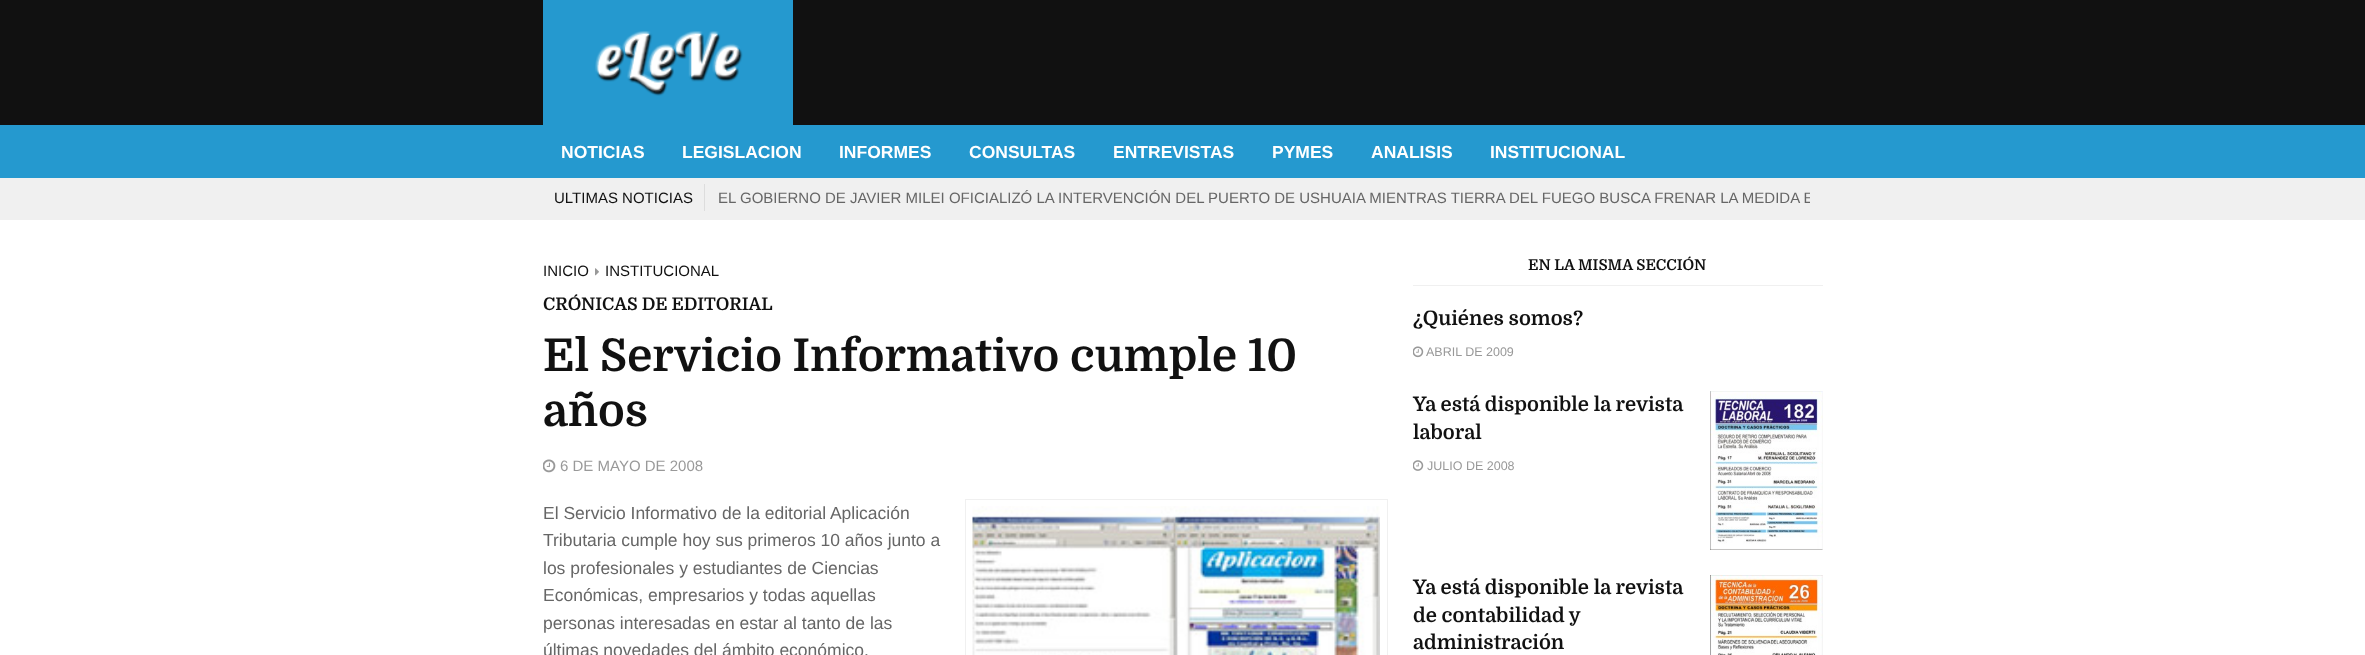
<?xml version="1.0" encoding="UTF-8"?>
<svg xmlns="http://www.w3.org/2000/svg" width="2365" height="655">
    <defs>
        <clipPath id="clip1"><rect x="718" y="184" width="1092" height="27"/></clipPath>
    </defs>
    <rect width="100%" height="100%" fill="#FFFFFF"/>
    <rect x="0" y="0" width="2365" height="125" fill="#111111"/>
    <rect x="543" y="0" width="250" height="125" fill="#2599CF"/>
    <image x="595" y="31" width="148" height="65" href="img_01.png"/>
    <rect x="0" y="125" width="2365" height="53" fill="#2599CF"/>
    <text x="561" y="158" font-family="Liberation Sans" font-size="17.5" font-weight="700" fill="#FFFFFF">NOTICIAS</text>
    <text x="682" y="158" font-family="Liberation Sans" font-size="17.5" font-weight="700" fill="#FFFFFF">LEGISLACION</text>
    <text x="839" y="158" font-family="Liberation Sans" font-size="17.5" font-weight="700" fill="#FFFFFF">INFORMES</text>
    <text x="969" y="158" font-family="Liberation Sans" font-size="17.5" font-weight="700" fill="#FFFFFF">CONSULTAS</text>
    <text x="1113" y="158" font-family="Liberation Sans" font-size="17.5" font-weight="700" fill="#FFFFFF">ENTREVISTAS</text>
    <text x="1272" y="158" font-family="Liberation Sans" font-size="17.5" font-weight="700" fill="#FFFFFF">PYMES</text>
    <text x="1371" y="158" font-family="Liberation Sans" font-size="17.5" font-weight="700" fill="#FFFFFF">ANALISIS</text>
    <text x="1490" y="158" font-family="Liberation Sans" font-size="17.5" font-weight="700" fill="#FFFFFF">INSTITUCIONAL</text>
    <rect x="0" y="178" width="2365" height="42" fill="#F0F0F0"/>
    <rect x="704" y="184" width="1" height="27" fill="#DDDDDD"/>
    <text x="554" y="203" font-family="Liberation Sans" font-size="15" fill="#111111">ULTIMAS NOTICIAS</text>
    <g clip-path="url(#clip1)">
        <text x="718" y="203" font-family="Liberation Sans" font-size="15" fill="#666666">EL GOBIERNO DE JAVIER MILEI OFICIALIZÓ LA INTERVENCIÓN DEL PUERTO DE USHUAIA MIENTRAS TIERRA DEL FUEGO BUSCA FRENAR LA MEDIDA E</text>
    </g>
    <text x="543" y="276" font-family="Liberation Sans" font-size="15" fill="#111111">INICIO</text>
    <image x="595" y="268" width="4" height="8" href="img_02.png"/>
    <text x="605" y="276" font-family="Liberation Sans" font-size="15" fill="#111111">INSTITUCIONAL</text>
    <text x="543" y="310" font-family="Domine" font-size="17.5" font-weight="700" fill="#111111">CRÓNICAS DE EDITORIAL</text>
    <text font-family="Domine" font-size="45" font-weight="700" fill="#111111">
        <tspan x="543" y="371">El Servicio Informativo cumple 10</tspan>
        <tspan x="543" y="426">años</tspan>
    </text>
    <image x="543" y="459" width="13" height="14" href="img_03.png"/>
    <text x="560" y="471" font-family="Liberation Sans" font-size="15" fill="#999999">6 DE MAYO DE 2008</text>
    <text font-family="Liberation Sans" font-size="17.5" fill="#666666">
        <tspan x="543" y="519">El Servicio Informativo de la editorial Aplicación</tspan>
        <tspan x="543" y="546">Tributaria cumple hoy sus primeros 10 años junto a</tspan>
        <tspan x="543" y="574">los profesionales y estudiantes de Ciencias</tspan>
        <tspan x="543" y="601">Económicas, empresarios y todas aquellas</tspan>
        <tspan x="543" y="629">personas interesadas en estar al tanto de las</tspan>
        <tspan x="543" y="656">últimas novedades del ámbito económico.</tspan>
    </text>
    <rect x="965.5" y="499.5" width="422" height="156" fill="none" stroke="#F0F0F0"/>
    <image x="972" y="506" width="408" height="149" href="img_04.png"/>
    <rect x="1413" y="285" width="410" height="1" fill="#F0F0F0"/>
    <text x="1528" y="270" font-family="Domine" font-size="15" font-weight="700" fill="#111111">EN LA MISMA SECCIÓN</text>
    <text x="1413" y="325" font-family="Domine" font-size="20" font-weight="700" fill="#111111">¿Quiénes somos?</text>
    <image x="1413" y="346" width="11" height="12" href="img_05.png"/>
    <text x="1426" y="356" font-family="Liberation Sans" font-size="12.5" fill="#999999">ABRIL DE 2009</text>
    <text font-family="Domine" font-size="20" font-weight="700" fill="#111111">
        <tspan x="1413" y="411">Ya está disponible la revista</tspan>
        <tspan x="1413" y="439">laboral</tspan>
    </text>
    <image x="1710" y="391" width="113" height="159" href="img_06.png"/>
    <image x="1413" y="460" width="11" height="11" href="img_07.png"/>
    <text x="1427" y="470" font-family="Liberation Sans" font-size="12.5" fill="#999999">JULIO DE 2008</text>
    <text font-family="Domine" font-size="20" font-weight="700" fill="#111111">
        <tspan x="1413" y="594">Ya está disponible la revista</tspan>
        <tspan x="1413" y="622">de contabilidad y</tspan>
        <tspan x="1413" y="649">administración</tspan>
    </text>
    <image x="1710" y="575" width="113" height="80" href="img_08.png"/>
</svg>
